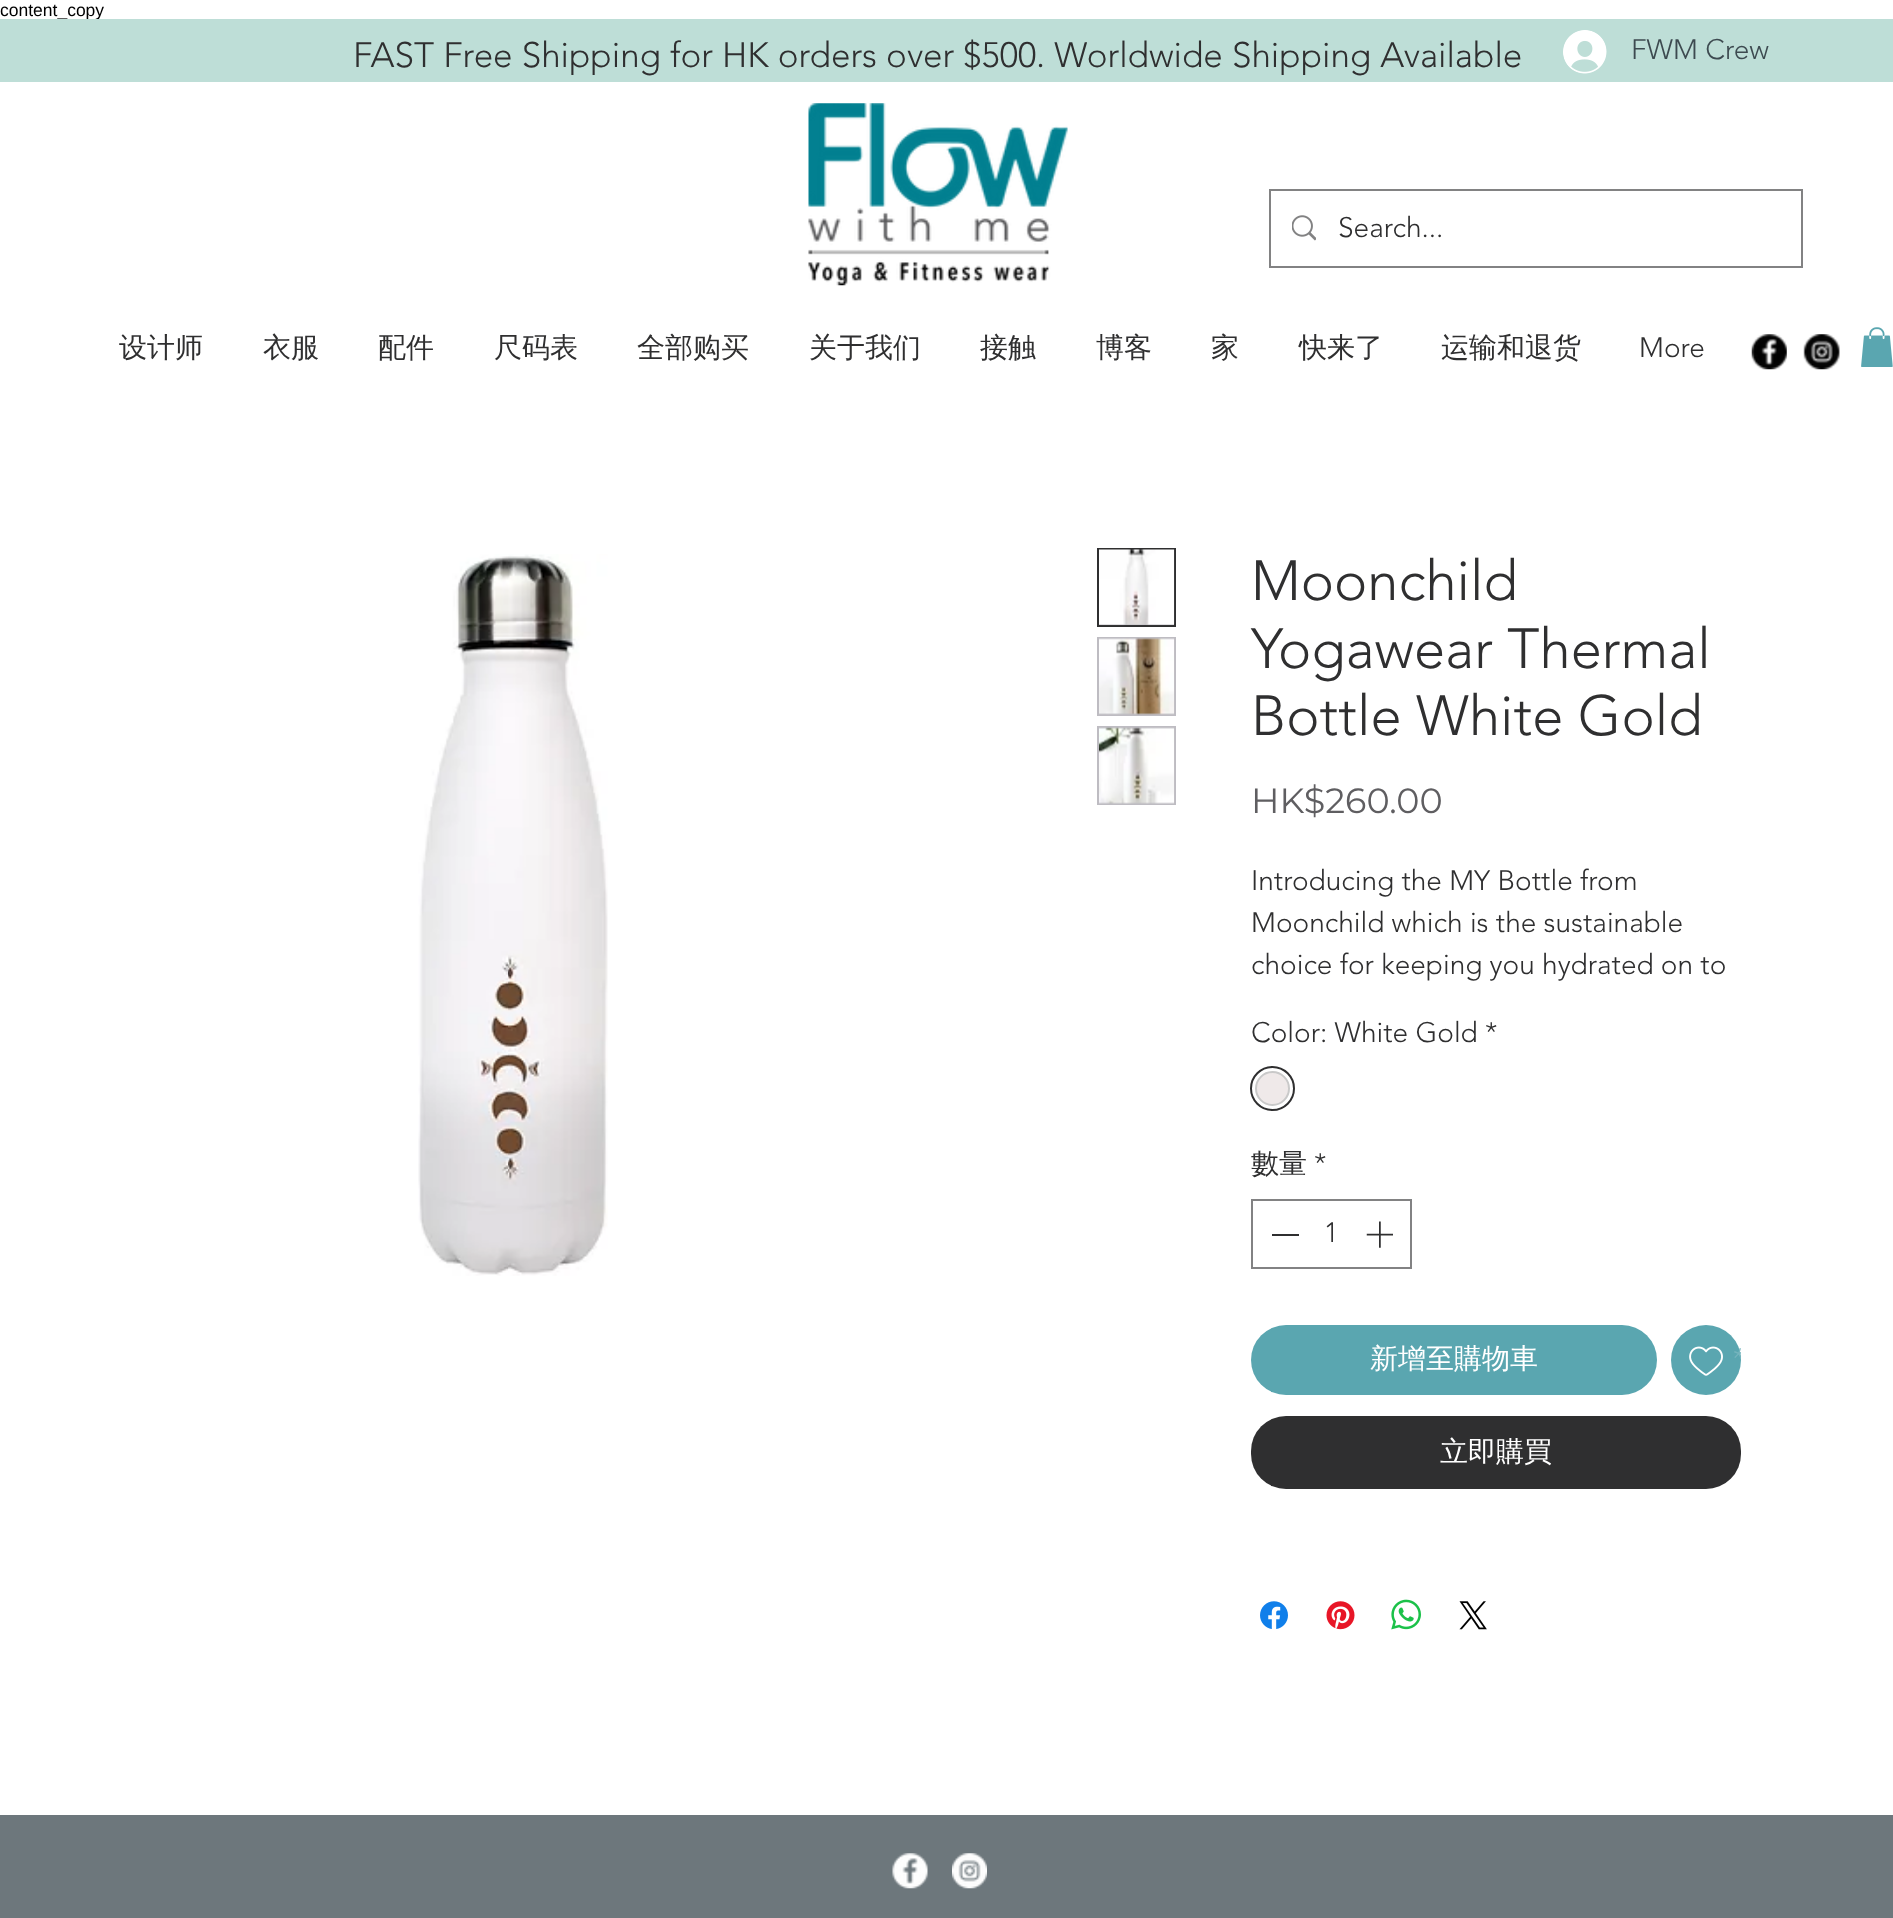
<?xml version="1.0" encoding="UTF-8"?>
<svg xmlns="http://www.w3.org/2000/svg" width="1893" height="1918">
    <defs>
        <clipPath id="clip1"><rect x="1671" y="1332" width="70" height="56"/></clipPath>
    </defs>
    <rect width="100%" height="100%" fill="#FFFFFF"/>
    <text x="0" y="16" font-family="Liberation Sans" font-size="17.5" fill="#000000">content_copy</text>
    <rect x="0" y="19" width="1893" height="63" fill="#BEDED7"/>
    <text x="353" y="67" font-family="'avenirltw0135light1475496'" font-size="35" font-weight="300" fill="#2F2F30">FAST Free Shipping for HK orders over $500. Worldwide Shipping Available</text>
    <image x="1563" y="30" width="44" height="44" href="img_01.png"/>
    <text x="1631" y="59" font-family="'avenirltw0135light1475496'" font-size="28" font-weight="300" fill="#3D4A50">FWM Crew</text>
    <image x="808" y="103" width="260" height="183" href="img_02.png"/>
    <rect x="1270" y="190" width="532" height="77" fill="none" stroke="#828283" stroke-width="2"/>
    <image x="1292" y="215" width="24" height="26" href="img_03.png"/>
    <text x="1338" y="237" font-family="'avenirltw0135light1475496'" font-size="28" font-weight="300" fill="#2F2F30">Search...</text>
    <text x="119" y="357" font-family="WenQuanYi Zen Hei" font-size="28" font-weight="500" fill="#2F2F30">设计师</text>
    <text x="263" y="357" font-family="WenQuanYi Zen Hei" font-size="28" font-weight="500" fill="#2F2F30">衣服</text>
    <text x="378" y="357" font-family="WenQuanYi Zen Hei" font-size="28" font-weight="500" fill="#2F2F30">配件</text>
    <text x="494" y="357" font-family="WenQuanYi Zen Hei" font-size="28" font-weight="500" fill="#2F2F30">尺码表</text>
    <text x="637" y="357" font-family="WenQuanYi Zen Hei" font-size="28" font-weight="500" fill="#2F2F30">全部购买</text>
    <text x="809" y="357" font-family="WenQuanYi Zen Hei" font-size="28" font-weight="500" fill="#2F2F30">关于我们</text>
    <text x="980" y="357" font-family="WenQuanYi Zen Hei" font-size="28" font-weight="500" fill="#2F2F30">接触</text>
    <text x="1096" y="357" font-family="WenQuanYi Zen Hei" font-size="28" font-weight="500" fill="#2F2F30">博客</text>
    <text x="1211" y="357" font-family="WenQuanYi Zen Hei" font-size="28" font-weight="500" fill="#2F2F30">家</text>
    <text x="1299" y="357" font-family="WenQuanYi Zen Hei" font-size="28" font-weight="500" fill="#2F2F30">快来了</text>
    <text x="1441" y="357" font-family="WenQuanYi Zen Hei" font-size="28" font-weight="500" fill="#2F2F30">运输和退货</text>
    <text x="1639" y="357" font-family="'avenirltw0135light1475496'" font-size="28" font-weight="300" fill="#2F2F30">More</text>
    <image x="1751" y="334" width="36" height="36" href="img_04.png"/>
    <image x="1803" y="334" width="37" height="36" href="img_05.png"/>
    <image x="1861" y="327" width="32" height="40" href="img_06.png"/>
    <image x="418" y="554" width="190" height="722" href="img_07.png"/>
    <rect x="1099" y="624" width="75" height="1" fill="#BEBCC2"/>
    <rect x="1098" y="549" width="77" height="77" fill="none" stroke="#2F2F30" stroke-width="2"/>
    <image x="1099" y="549" width="76" height="77" href="img_08.png"/>
    <rect x="1097" y="637" width="79" height="79" fill="#BEBCC2"/>
    <image x="1099" y="638" width="76" height="77" href="img_09.png"/>
    <rect x="1097" y="726" width="79" height="79" fill="#BEBCC2"/>
    <image x="1099" y="727" width="76" height="77" href="img_10.png"/>
    <text font-family="'avenirltw0135light1475496'" font-size="56" font-weight="300" fill="#2F2F30">
        <tspan x="1251" y="600">Moonchild</tspan>
        <tspan x="1251" y="668">Yogawear Thermal</tspan>
        <tspan x="1251" y="735">Bottle White Gold</tspan>
    </text>
    <text x="1251" y="813" font-family="Montserrat" font-size="35" fill="#5F5E61">HK$260.00</text>
    <text font-family="'avenirltw0135light1475496'" font-size="28" font-weight="300" fill="#2F2F30">
        <tspan x="1251" y="890">Introducing the MY Bottle from</tspan>
        <tspan x="1251" y="932">Moonchild which is the sustainable</tspan>
        <tspan x="1251" y="974">choice for keeping you hydrated on to</tspan>
    </text>
    <text x="1251" y="1042" font-family="'avenirltw0135light1475496'" font-size="28" font-weight="300" fill="#2F2F30">Color: White Gold *</text>
    <circle cx="1272.5" cy="1088.5" r="21.5" fill="none" stroke="#2F2F30" stroke-width="2"/>
    <circle cx="1272.5" cy="1088.5" r="16.5" fill="#EFE9E9" stroke="#C9C9C9" stroke-width="2"/>
    <text x="1251" y="1173" font-family="WenQuanYi Zen Hei" font-size="28" font-weight="500" fill="#2F2F30">數量</text>
    <text x="1314" y="1173" font-family="'avenirltw0135light1475496'" font-size="28" font-weight="300" fill="#2F2F30">*</text>
    <rect x="1252" y="1200" width="159" height="68" fill="none" stroke="#828283" stroke-width="2"/>
    <rect x="1272" y="1234" width="27" height="2" fill="#2F2F30"/>
    <text x="1324" y="1242" font-family="'avenirltw0135light1475496'" font-size="28" font-weight="300" fill="#2F2F30">1</text>
    <image x="1366" y="1221" width="27" height="27" href="img_11.png"/>
    <rect x="1251" y="1325" width="406" height="70" rx="35" fill="#5AA6B0"/>
    <text x="1370" y="1368" font-family="WenQuanYi Zen Hei" font-size="28" font-weight="500" fill="#FFFFFF">新增至購物車</text>
    <circle cx="1706" cy="1360" r="35" fill="#5AA6B0"/>
    <image x="1689" y="1346" width="34" height="30" href="img_12.png"/>
    <g clip-path="url(#clip1)">
        <text x="1729" y="1368" font-family="'avenirltw0135light1475496'" font-size="28" font-weight="300" font-style="italic" fill="#75B4BD">*</text>
    </g>
    <rect x="1251" y="1416" width="490" height="73" rx="35" fill="#2F2F30"/>
    <text x="1440" y="1461" font-family="WenQuanYi Zen Hei" font-size="28" font-weight="500" fill="#FFFFFF">立即購買</text>
    <image x="1260" y="1601" width="28" height="28" href="img_13.png"/>
    <image x="1326" y="1601" width="29" height="29" href="img_14.png"/>
    <image x="1391" y="1599" width="30" height="31" href="img_15.png"/>
    <image x="1459" y="1601" width="28" height="29" href="img_16.png"/>
    <rect x="0" y="1815" width="1893" height="103" fill="#6D777C"/>
    <image x="892" y="1853" width="36" height="36" href="img_17.png"/>
    <image x="952" y="1853" width="35" height="36" href="img_18.png"/>
</svg>
